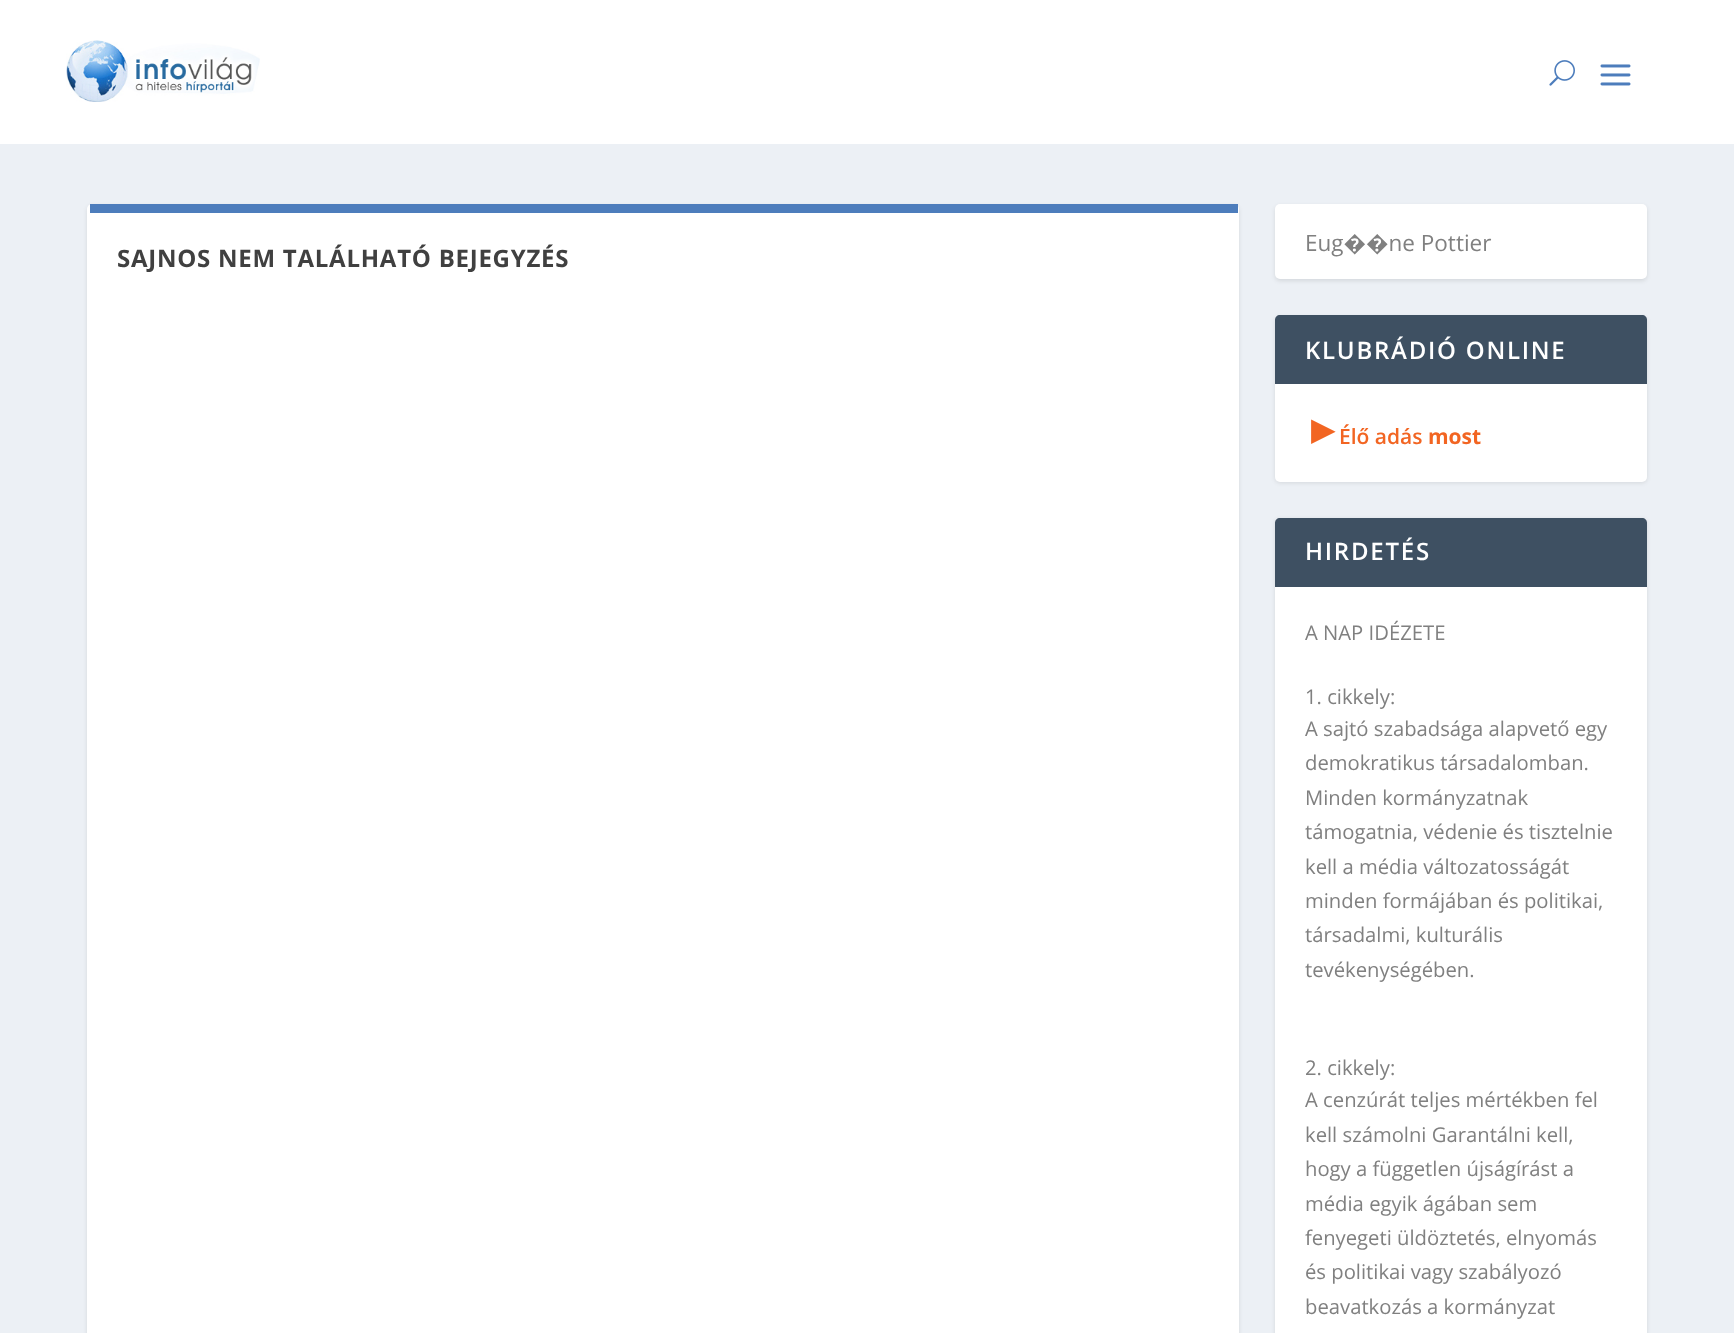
<?xml version="1.0" encoding="UTF-8"?>
<svg xmlns="http://www.w3.org/2000/svg" width="1734" height="1333">
    <defs>
        <filter id="blur1" x="-50%" y="-200%" width="200%" height="500%"><feGaussianBlur stdDeviation="2"/></filter>
    </defs>
    <rect width="100%" height="100%" fill="#ECF0F5"/>
    <rect x="0" y="0" width="1734" height="144" fill="#FFFFFF"/>
    <image x="66" y="40" width="194" height="62" href="img_01.png"/>
    <image x="1549" y="60" width="26" height="26" href="img_02.png"/>
    <image x="1600" y="64" width="31" height="22" href="img_03.png"/>
    <rect x="87" y="206" width="1152" height="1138" rx="5" fill="#000000" fill-opacity="0.1" filter="url(#blur1)"/>
    <rect x="87" y="204" width="1152" height="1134" rx="5" fill="#FFFFFF"/>
    <rect x="90" y="204" width="1148" height="9" fill="#4D7DBC"/>
    <text x="117" y="267" font-family="Open Sans" font-size="24" font-weight="700" letter-spacing="0.75" fill="#404040">SAJNOS NEM TALÁLHATÓ BEJEGYZÉS</text>
    <rect x="1275" y="206" width="372" height="75" rx="5" fill="#000000" fill-opacity="0.1" filter="url(#blur1)"/>
    <rect x="1275" y="204" width="372" height="75" rx="5" fill="#FFFFFF"/>
    <text x="1305" y="251" font-family="Open Sans" font-size="22.5" fill="#808080">Eug��ne Pottier</text>
    <rect x="1275" y="317" width="372" height="166" rx="5" fill="#000000" fill-opacity="0.1" filter="url(#blur1)"/>
    <rect x="1275" y="315" width="372" height="167" rx="5" fill="#FFFFFF"/>
    <path d="M 1280 315 H 1642 C 1645 315 1647 317 1647 320 V 384 H 1275 V 320 C 1275 317 1277 315 1280 315 Z" fill="#3E5062"/>
    <text x="1305" y="359" font-family="Open Sans" font-size="24" font-weight="600" letter-spacing="1.75" fill="#FFFFFF">KLUBRÁDIÓ ONLINE</text>
    <text x="1311" y="444" font-family="DejaVu Sans" font-size="45" font-weight="700" fill="#F26522">▸</text>
    <text x="1339" y="444" font-family="Open Sans" font-size="21" font-weight="600" fill="#F26522">Élő adás</text>
    <text x="1428" y="444" font-family="Open Sans" font-size="21" font-weight="700" fill="#F26522">most</text>
    <rect x="1275" y="519" width="372" height="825" rx="5" fill="#000000" fill-opacity="0.1" filter="url(#blur1)"/>
    <rect x="1275" y="518" width="372" height="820" rx="5" fill="#FFFFFF"/>
    <path d="M 1280 518 H 1642 C 1645 518 1647 520 1647 523 V 587 H 1275 V 523 C 1275 520 1277 518 1280 518 Z" fill="#3E5062"/>
    <text x="1305" y="560" font-family="Open Sans" font-size="24" font-weight="600" letter-spacing="1.75" fill="#FFFFFF">HIRDETÉS</text>
    <text x="1305" y="640" font-family="Open Sans" font-size="20.25" fill="#808080">A NAP IDÉZETE</text>
    <text font-family="Open Sans" font-size="20.25" fill="#808080">
        <tspan x="1305" y="704">1. cikkely:</tspan>
        <tspan x="1305" y="736">A sajtó szabadsága alapvető egy</tspan>
        <tspan x="1305" y="770">demokratikus társadalomban.</tspan>
        <tspan x="1305" y="805">Minden kormányzatnak</tspan>
        <tspan x="1305" y="839">támogatnia, védenie és tisztelnie</tspan>
        <tspan x="1305" y="874">kell a média változatosságát</tspan>
        <tspan x="1305" y="908">minden formájában és politikai,</tspan>
        <tspan x="1305" y="942">társadalmi, kulturális</tspan>
        <tspan x="1305" y="977">tevékenységében.</tspan>
    </text>
    <text font-family="Open Sans" font-size="20.25" fill="#808080">
        <tspan x="1305" y="1075">2. cikkely:</tspan>
        <tspan x="1305" y="1107">A cenzúrát teljes mértékben fel</tspan>
        <tspan x="1305" y="1142">kell számolni Garantálni kell,</tspan>
        <tspan x="1305" y="1176">hogy a független újságírást a</tspan>
        <tspan x="1305" y="1211">média egyik ágában sem</tspan>
        <tspan x="1305" y="1245">fenyegeti üldöztetés, elnyomás</tspan>
        <tspan x="1305" y="1279">és politikai vagy szabályozó</tspan>
        <tspan x="1305" y="1314">beavatkozás a kormányzat</tspan>
    </text>
</svg>
